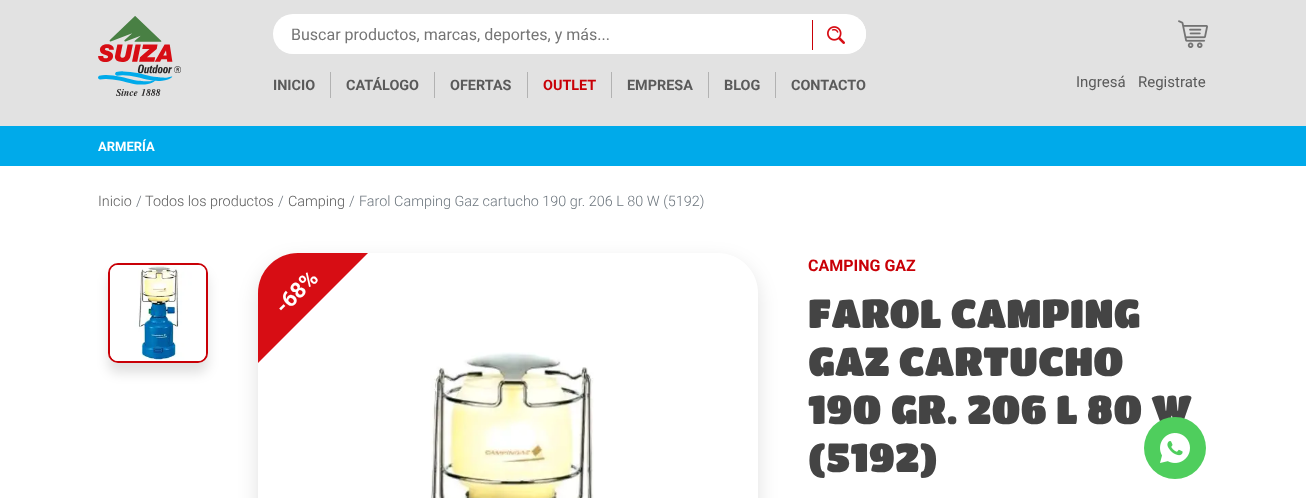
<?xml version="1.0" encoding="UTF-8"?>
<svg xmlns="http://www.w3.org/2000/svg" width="1306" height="498">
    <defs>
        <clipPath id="clip1"><rect x="273" y="14" width="593" height="40" rx="20"/></clipPath>
        <filter id="blur1" x="-50%" y="-200%" width="200%" height="500%"><feGaussianBlur stdDeviation="6"/></filter>
        <filter id="blur2" x="-50%" y="-200%" width="200%" height="500%"><feGaussianBlur stdDeviation="10"/></filter>
    </defs>
    <rect width="100%" height="100%" fill="#FFFFFF"/>
    <rect x="0" y="0" width="1306" height="126" fill="#E2E2E2"/>
    <image x="98" y="16" width="83" height="80" href="img_01.png"/>
    <rect x="273" y="14" width="593" height="40" rx="20" fill="#FFFFFF"/>
    <text x="291" y="40" font-family="Roboto" font-size="16" fill="#757575">Buscar productos, marcas, deportes, y más...</text>
    <g clip-path="url(#clip1)">
        <rect x="813" y="20" width="53" height="30" fill="#FFFFFF"/>
    </g>
    <image x="827" y="26" width="18" height="18" href="img_02.png"/>
    <rect x="812" y="20" width="1" height="30" fill="#C90007"/>
    <rect x="330" y="72" width="1" height="26" fill="#B2B2B2"/>
    <text x="273" y="90" font-family="Roboto" font-size="14.4" font-weight="700" fill="#5A5A5A">INICIO</text>
    <rect x="434" y="72" width="1" height="26" fill="#B2B2B2"/>
    <text x="346" y="90" font-family="Roboto" font-size="14.4" font-weight="700" fill="#5A5A5A">CATÁLOGO</text>
    <rect x="527" y="72" width="1" height="26" fill="#B2B2B2"/>
    <text x="450" y="90" font-family="Roboto" font-size="14.4" font-weight="700" fill="#5A5A5A">OFERTAS</text>
    <rect x="611" y="72" width="1" height="26" fill="#B2B2B2"/>
    <text x="543" y="90" font-family="Roboto" font-size="14.4" font-weight="700" fill="#C90007">OUTLET</text>
    <rect x="708" y="72" width="1" height="26" fill="#B2B2B2"/>
    <text x="627" y="90" font-family="Roboto" font-size="14.4" font-weight="700" fill="#5A5A5A">EMPRESA</text>
    <rect x="775" y="72" width="1" height="26" fill="#B2B2B2"/>
    <text x="724" y="90" font-family="Roboto" font-size="14.4" font-weight="700" fill="#5A5A5A">BLOG</text>
    <text x="791" y="90" font-family="Roboto" font-size="14.4" font-weight="700" fill="#5A5A5A">CONTACTO</text>
    <image x="1178" y="20" width="30" height="28" href="img_03.png"/>
    <text x="1076" y="87" font-family="Roboto" font-size="15" fill="#5A5A5A">Ingresá</text>
    <text x="1138" y="87" font-family="Roboto" font-size="15" fill="#5A5A5A">Registrate</text>
    <rect x="0" y="126" width="1306" height="40" fill="#00AAEA"/>
    <text x="98" y="151" font-family="Roboto" font-size="13" font-weight="700" fill="#FFFFFF">ARMERÍA</text>
    <text x="98" y="206" font-family="Roboto" font-size="14.4" font-weight="300" fill="#5A5A5A">Inicio</text>
    <text x="136" y="206" font-family="Roboto" font-size="14.4" font-weight="300" fill="#6C757D">/</text>
    <text x="145" y="206" font-family="Roboto" font-size="14.4" font-weight="300" fill="#5A5A5A">Todos los productos</text>
    <text x="278" y="206" font-family="Roboto" font-size="14.4" font-weight="300" fill="#6C757D">/</text>
    <text x="288" y="206" font-family="Roboto" font-size="14.4" font-weight="300" fill="#5A5A5A">Camping</text>
    <text x="349" y="206" font-family="Roboto" font-size="14.4" font-weight="300" fill="#6C757D">/</text>
    <text x="359" y="206" font-family="Roboto" font-size="14.4" font-weight="300" fill="#6C757D">Farol Camping Gaz cartucho 190 gr. 206 L 80 W (5192)</text>
    <rect x="108" y="273" width="100" height="100" rx="10" fill="#000000" fill-opacity="0.12" filter="url(#blur1)"/>
    <rect x="109" y="264" width="98" height="98" rx="9" fill="#FFFFFF" stroke="#C90007" stroke-width="2"/>
    <image x="110" y="265" width="96" height="96" href="img_04.png"/>
    <rect x="258" y="261" width="500" height="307" rx="40" fill="#000000" fill-opacity="0.12" filter="url(#blur2)"/>
    <path d="M 298 253 H 718 C 740 253 758 271 758 293 V 498 H 258 V 293 C 258 271 276 253 298 253 Z" fill="#FFFFFF"/>
    <path d="M 298 253 C 276 253 258 271 258 293 V 363 L 368 253 Z" fill="#D70D14"/>
    <text x="284" y="315" transform="rotate(-45 284 315)" font-family="Roboto" font-size="22" font-weight="700" fill="#FFFFFF">-68%</text>
    <image x="430" y="352" width="164" height="146" href="img_05.png"/>
    <text x="808" y="271" font-family="Roboto" font-size="16" font-weight="700" fill="#C90007">CAMPING GAZ</text>
    <text font-family="Titan One" font-size="40" fill="#444444">
        <tspan x="808" y="328">FAROL CAMPING</tspan>
        <tspan x="808" y="376">GAZ CARTUCHO</tspan>
        <tspan x="808" y="424">190 GR. 206 L 80 W</tspan>
        <tspan x="808" y="472">(5192)</tspan>
    </text>
    <circle cx="1175" cy="448" r="31" fill="#4FCE5D"/>
    <image x="1160" y="433" width="30" height="30" href="img_06.png"/>
</svg>
